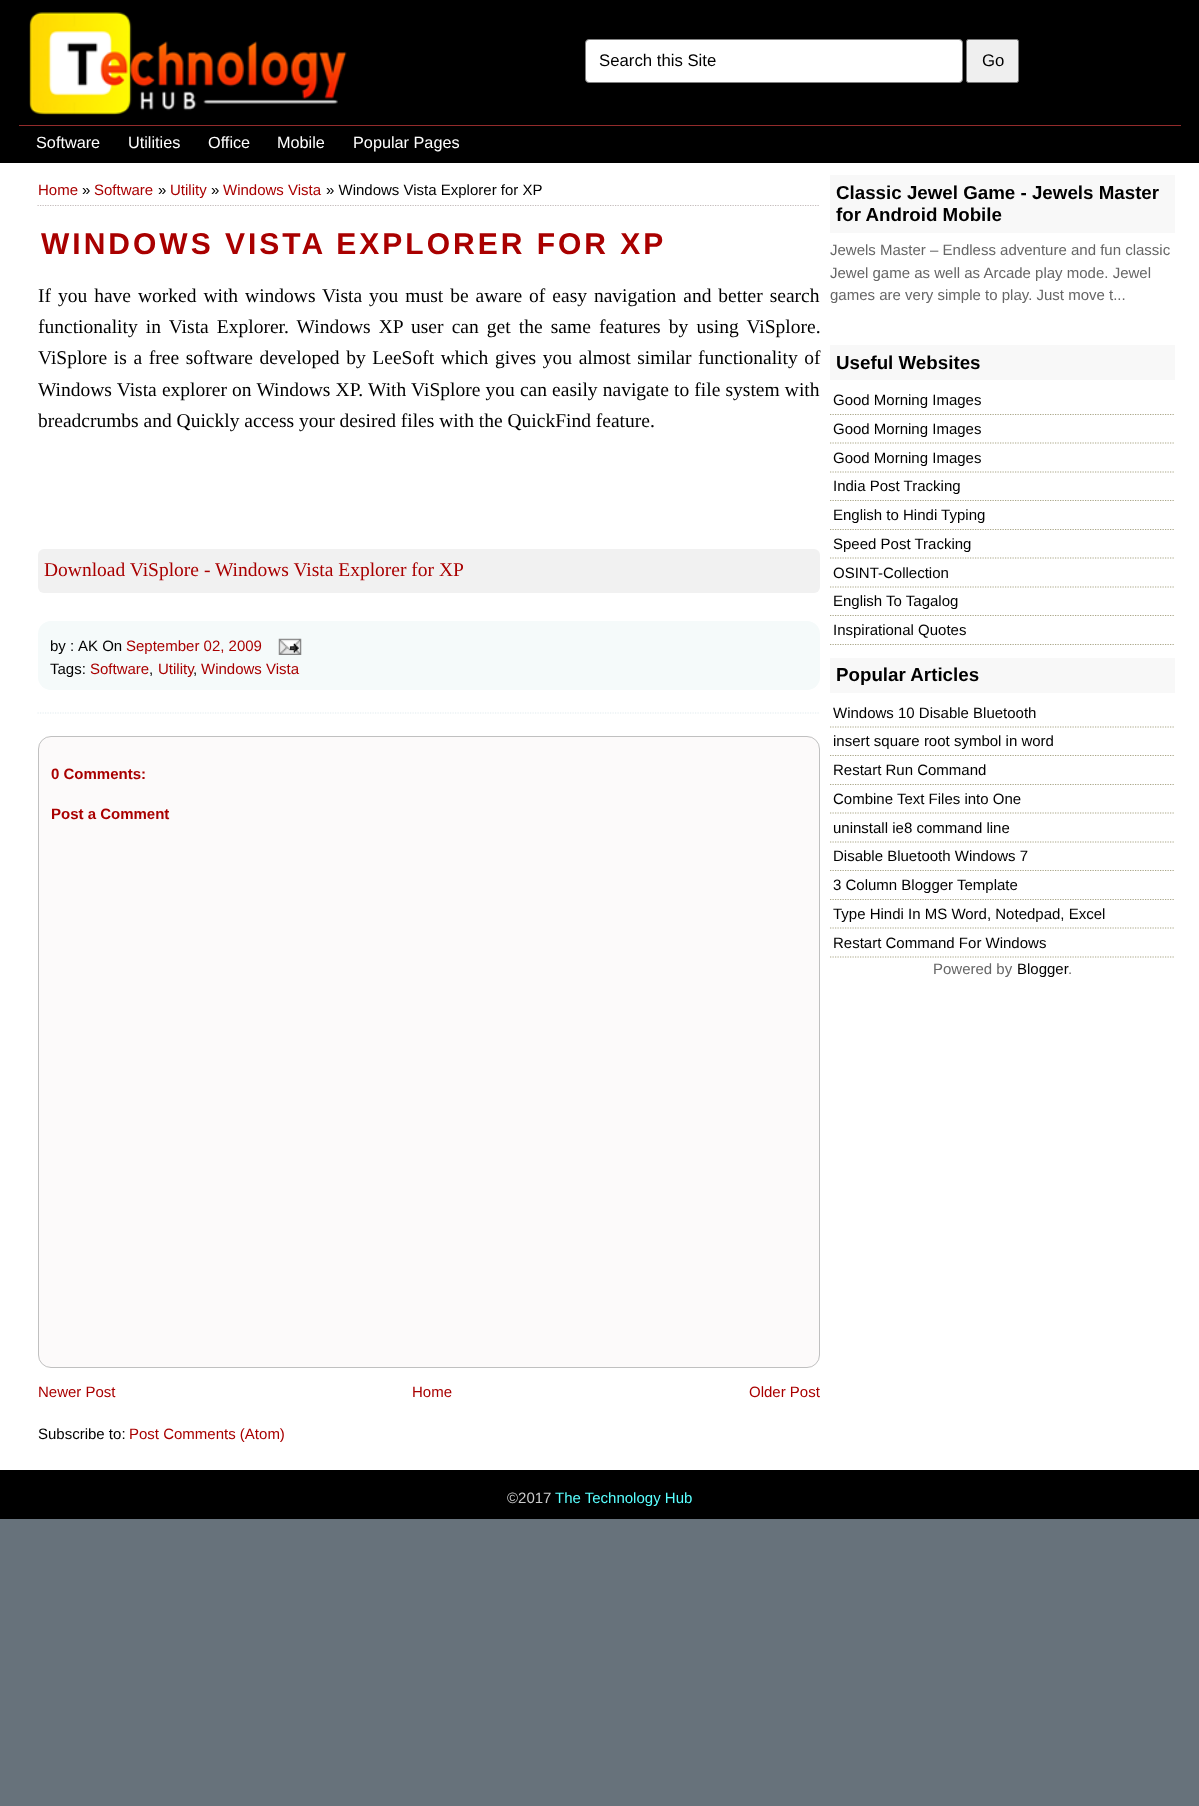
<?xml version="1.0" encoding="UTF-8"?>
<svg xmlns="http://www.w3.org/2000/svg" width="1199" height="1806">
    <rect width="100%" height="100%" fill="#67727B"/>
    <rect x="0" y="0" width="1199" height="163" fill="#000000"/>
    <image x="29" y="12" width="318" height="103" href="img_01.png"/>
    <rect x="585.5" y="39.5" width="377" height="43" rx="3.5" fill="#FFFFFF" stroke="#808080"/>
    <text x="599" y="66" font-family="Liberation Sans" font-size="16.75" fill="#000000">Search this Site</text>
    <rect x="966.5" y="39.5" width="52" height="43" rx="2" fill="#EFEFEF" stroke="#767676"/>
    <text x="982" y="66" font-family="Liberation Sans" font-size="16.75" fill="#000000">Go</text>
    <rect x="19" y="125" width="1162" height="1" fill="#922B2B"/>
    <text x="36" y="148" font-family="Liberation Sans" font-size="16.25" fill="#FFFFFF">Software</text>
    <text x="128" y="148" font-family="Liberation Sans" font-size="16.25" fill="#FFFFFF">Utilities</text>
    <text x="208" y="148" font-family="Liberation Sans" font-size="16.25" fill="#FFFFFF">Office</text>
    <text x="277" y="148" font-family="Liberation Sans" font-size="16.25" fill="#FFFFFF">Mobile</text>
    <text x="353" y="148" font-family="Liberation Sans" font-size="16.25" fill="#FFFFFF">Popular Pages</text>
    <rect x="0" y="163" width="1199" height="1307" fill="#FFFFFF"/>
    <path d="M 37.5 205.5 H 820" fill="none" stroke="#C4BCBC" stroke-width="1.2" stroke-dasharray="1.25 1.25"/>
    <text x="38" y="195" font-family="Liberation Sans" font-size="15" fill="#A90000">Home</text>
    <text x="82" y="195" font-family="Liberation Sans" font-size="15" fill="#000000">»</text>
    <text x="94" y="195" font-family="Liberation Sans" font-size="15" fill="#A90000">Software</text>
    <text x="158" y="195" font-family="Liberation Sans" font-size="15" fill="#000000">»</text>
    <text x="170" y="195" font-family="Liberation Sans" font-size="15" fill="#A90000">Utility</text>
    <text x="211" y="195" font-family="Liberation Sans" font-size="15" fill="#000000">»</text>
    <text x="223" y="195" font-family="Liberation Sans" font-size="15" fill="#A90000">Windows Vista</text>
    <text x="326" y="195" font-family="Liberation Sans" font-size="15" fill="#000000">» Windows Vista Explorer for XP</text>
    <path d="M 37.5 713 H 820" fill="none" stroke="#E2EBEF" stroke-width="1.2" stroke-dasharray="1.25 1.25"/>
    <text x="41" y="254" font-family="Liberation Sans" font-size="30" font-weight="700" letter-spacing="3" fill="#A90000">WINDOWS VISTA EXPLORER FOR XP</text>
    <text font-family="Liberation Serif" font-size="19.5" fill="#000000">
        <tspan x="38" y="302" word-spacing="2.1">If you have worked with windows Vista you must be aware of easy navigation and better search</tspan>
        <tspan x="38" y="333" word-spacing="3.25">functionality in Vista Explorer. Windows XP user can get the same features by using ViSplore.</tspan>
        <tspan x="38" y="364" word-spacing="1.75">ViSplore is a free software developed by LeeSoft which gives you almost similar functionality of</tspan>
        <tspan x="38" y="396" word-spacing="0.3">Windows Vista explorer on Windows XP. With ViSplore you can easily navigate to file system with</tspan>
        <tspan x="38" y="427">breadcrumbs and Quickly access your desired files with the QuickFind feature.</tspan>
    </text>
    <rect x="38" y="549" width="782" height="44" rx="6" fill="#F1F1F1"/>
    <text x="44" y="576" font-family="Liberation Serif" font-size="19.5" fill="#A90000">Download ViSplore - Windows Vista Explorer for XP</text>
    <rect x="38" y="621" width="782" height="69" rx="13" fill="#F5FAFA"/>
    <text x="50" y="651" font-family="Liberation Sans" font-size="15" fill="#000000">by :</text>
    <text x="78" y="651" font-family="Liberation Sans" font-size="15" fill="#000000">AK On</text>
    <text x="126" y="651" font-family="Liberation Sans" font-size="15" fill="#A90000">September 02, 2009</text>
    <image x="278" y="638" width="24" height="17" href="img_02.png"/>
    <text x="50" y="674" font-family="Liberation Sans" font-size="15" fill="#000000">Tags:</text>
    <text x="90" y="674" font-family="Liberation Sans" font-size="15" fill="#A90000">Software</text>
    <text x="149" y="674" font-family="Liberation Sans" font-size="15" fill="#000000">,</text>
    <text x="158" y="674" font-family="Liberation Sans" font-size="15" fill="#A90000">Utility</text>
    <text x="201" y="674" font-family="Liberation Sans" font-size="15" fill="#A90000">Windows Vista</text>
    <text x="193" y="674" font-family="Liberation Sans" font-size="15" fill="#000000">,</text>
    <rect x="38.5" y="736.5" width="781" height="631" rx="12.5" fill="#FCFAFA" stroke="#C0C0C0"/>
    <text x="51" y="779" font-family="Liberation Sans" font-size="15" font-weight="700" fill="#A90000">0 Comments:</text>
    <text x="51" y="819" font-family="Liberation Sans" font-size="15" font-weight="700" fill="#A90000">Post a Comment</text>
    <text x="38" y="1397" font-family="Liberation Sans" font-size="15" fill="#A90000">Newer Post</text>
    <text x="412" y="1397" font-family="Liberation Sans" font-size="15" fill="#A90000">Home</text>
    <text x="749" y="1397" font-family="Liberation Sans" font-size="15" fill="#A90000">Older Post</text>
    <text x="38" y="1439" font-family="Liberation Sans" font-size="15" fill="#000000">Subscribe to:</text>
    <text x="129" y="1439" font-family="Liberation Sans" font-size="15" fill="#A90000">Post Comments (Atom)</text>
    <rect x="830" y="175" width="345" height="58" fill="#F8F8F8"/>
    <text font-family="Liberation Sans" font-size="18.75" font-weight="700" fill="#000000">
        <tspan x="836" y="199">Classic Jewel Game - Jewels Master</tspan>
        <tspan x="836" y="221">for Android Mobile</tspan>
    </text>
    <text font-family="Liberation Sans" font-size="15" fill="#666666">
        <tspan x="830" y="255">Jewels Master – Endless adventure and fun classic</tspan>
        <tspan x="830" y="278">Jewel game as well as Arcade play mode. Jewel</tspan>
        <tspan x="830" y="300">games are very simple to play. Just move t...</tspan>
    </text>
    <rect x="830" y="345" width="345" height="35" fill="#F8F8F8"/>
    <text x="836" y="369" font-family="Liberation Sans" font-size="18.75" font-weight="700" fill="#000000">Useful Websites</text>
    <path d="M 830 414.5 H 1175" fill="none" stroke="#ABA789" stroke-width="1.2" stroke-dasharray="1.25 1.25"/>
    <text x="833" y="405" font-family="Liberation Sans" font-size="15" fill="#000000">Good Morning Images</text>
    <path d="M 830 443 H 1175" fill="none" stroke="#ABA789" stroke-width="1.2" stroke-dasharray="1.25 1.25"/>
    <text x="833" y="434" font-family="Liberation Sans" font-size="15" fill="#000000">Good Morning Images</text>
    <path d="M 830 472 H 1175" fill="none" stroke="#ABA789" stroke-width="1.2" stroke-dasharray="1.25 1.25"/>
    <text x="833" y="463" font-family="Liberation Sans" font-size="15" fill="#000000">Good Morning Images</text>
    <path d="M 830 500.5 H 1175" fill="none" stroke="#ABA789" stroke-width="1.2" stroke-dasharray="1.25 1.25"/>
    <text x="833" y="491" font-family="Liberation Sans" font-size="15" fill="#000000">India Post Tracking</text>
    <path d="M 830 529.5 H 1175" fill="none" stroke="#ABA789" stroke-width="1.2" stroke-dasharray="1.25 1.25"/>
    <text x="833" y="520" font-family="Liberation Sans" font-size="15" fill="#000000">English to Hindi Typing</text>
    <path d="M 830 558 H 1175" fill="none" stroke="#ABA789" stroke-width="1.2" stroke-dasharray="1.25 1.25"/>
    <text x="833" y="549" font-family="Liberation Sans" font-size="15" fill="#000000">Speed Post Tracking</text>
    <path d="M 830 587 H 1175" fill="none" stroke="#ABA789" stroke-width="1.2" stroke-dasharray="1.25 1.25"/>
    <text x="833" y="578" font-family="Liberation Sans" font-size="15" fill="#000000">OSINT-Collection</text>
    <path d="M 830 615.5 H 1175" fill="none" stroke="#ABA789" stroke-width="1.2" stroke-dasharray="1.25 1.25"/>
    <text x="833" y="606" font-family="Liberation Sans" font-size="15" fill="#000000">English To Tagalog</text>
    <path d="M 830 644.5 H 1175" fill="none" stroke="#ABA789" stroke-width="1.2" stroke-dasharray="1.25 1.25"/>
    <text x="833" y="635" font-family="Liberation Sans" font-size="15" fill="#000000">Inspirational Quotes</text>
    <rect x="830" y="658" width="345" height="35" fill="#F8F8F8"/>
    <text x="836" y="681" font-family="Liberation Sans" font-size="18.75" font-weight="700" fill="#000000">Popular Articles</text>
    <path d="M 830 727 H 1175" fill="none" stroke="#ABA789" stroke-width="1.2" stroke-dasharray="1.25 1.25"/>
    <text x="833" y="718" font-family="Liberation Sans" font-size="15" fill="#000000">Windows 10 Disable Bluetooth</text>
    <path d="M 830 755.5 H 1175" fill="none" stroke="#ABA789" stroke-width="1.2" stroke-dasharray="1.25 1.25"/>
    <text x="833" y="746" font-family="Liberation Sans" font-size="15" fill="#000000">insert square root symbol in word</text>
    <path d="M 830 784.5 H 1175" fill="none" stroke="#ABA789" stroke-width="1.2" stroke-dasharray="1.25 1.25"/>
    <text x="833" y="775" font-family="Liberation Sans" font-size="15" fill="#000000">Restart Run Command</text>
    <path d="M 830 813 H 1175" fill="none" stroke="#ABA789" stroke-width="1.2" stroke-dasharray="1.25 1.25"/>
    <text x="833" y="804" font-family="Liberation Sans" font-size="15" fill="#000000">Combine Text Files into One</text>
    <path d="M 830 842 H 1175" fill="none" stroke="#ABA789" stroke-width="1.2" stroke-dasharray="1.25 1.25"/>
    <text x="833" y="833" font-family="Liberation Sans" font-size="15" fill="#000000">uninstall ie8 command line</text>
    <path d="M 830 870.5 H 1175" fill="none" stroke="#ABA789" stroke-width="1.2" stroke-dasharray="1.25 1.25"/>
    <text x="833" y="861" font-family="Liberation Sans" font-size="15" fill="#000000">Disable Bluetooth Windows 7</text>
    <path d="M 830 899.5 H 1175" fill="none" stroke="#ABA789" stroke-width="1.2" stroke-dasharray="1.25 1.25"/>
    <text x="833" y="890" font-family="Liberation Sans" font-size="15" fill="#000000">3 Column Blogger Template</text>
    <path d="M 830 928 H 1175" fill="none" stroke="#ABA789" stroke-width="1.2" stroke-dasharray="1.25 1.25"/>
    <text x="833" y="919" font-family="Liberation Sans" font-size="15" fill="#000000">Type Hindi In MS Word, Notedpad, Excel</text>
    <path d="M 830 957 H 1175" fill="none" stroke="#ABA789" stroke-width="1.2" stroke-dasharray="1.25 1.25"/>
    <text x="833" y="948" font-family="Liberation Sans" font-size="15" fill="#000000">Restart Command For Windows</text>
    <text x="933" y="974" font-family="Liberation Sans" font-size="15" fill="#666666">Powered by</text>
    <text x="1017" y="974" font-family="Liberation Sans" font-size="15" fill="#000000">Blogger</text>
    <text x="1068" y="974" font-family="Liberation Sans" font-size="15" fill="#666666">.</text>
    <rect x="0" y="1470" width="1199" height="49" fill="#000000"/>
    <text x="507" y="1503" font-family="Liberation Sans" font-size="15" fill="#CCCCCC">©2017</text>
    <text x="555" y="1503" font-family="Liberation Sans" font-size="15" fill="#59FFFF">The Technology Hub</text>
</svg>
